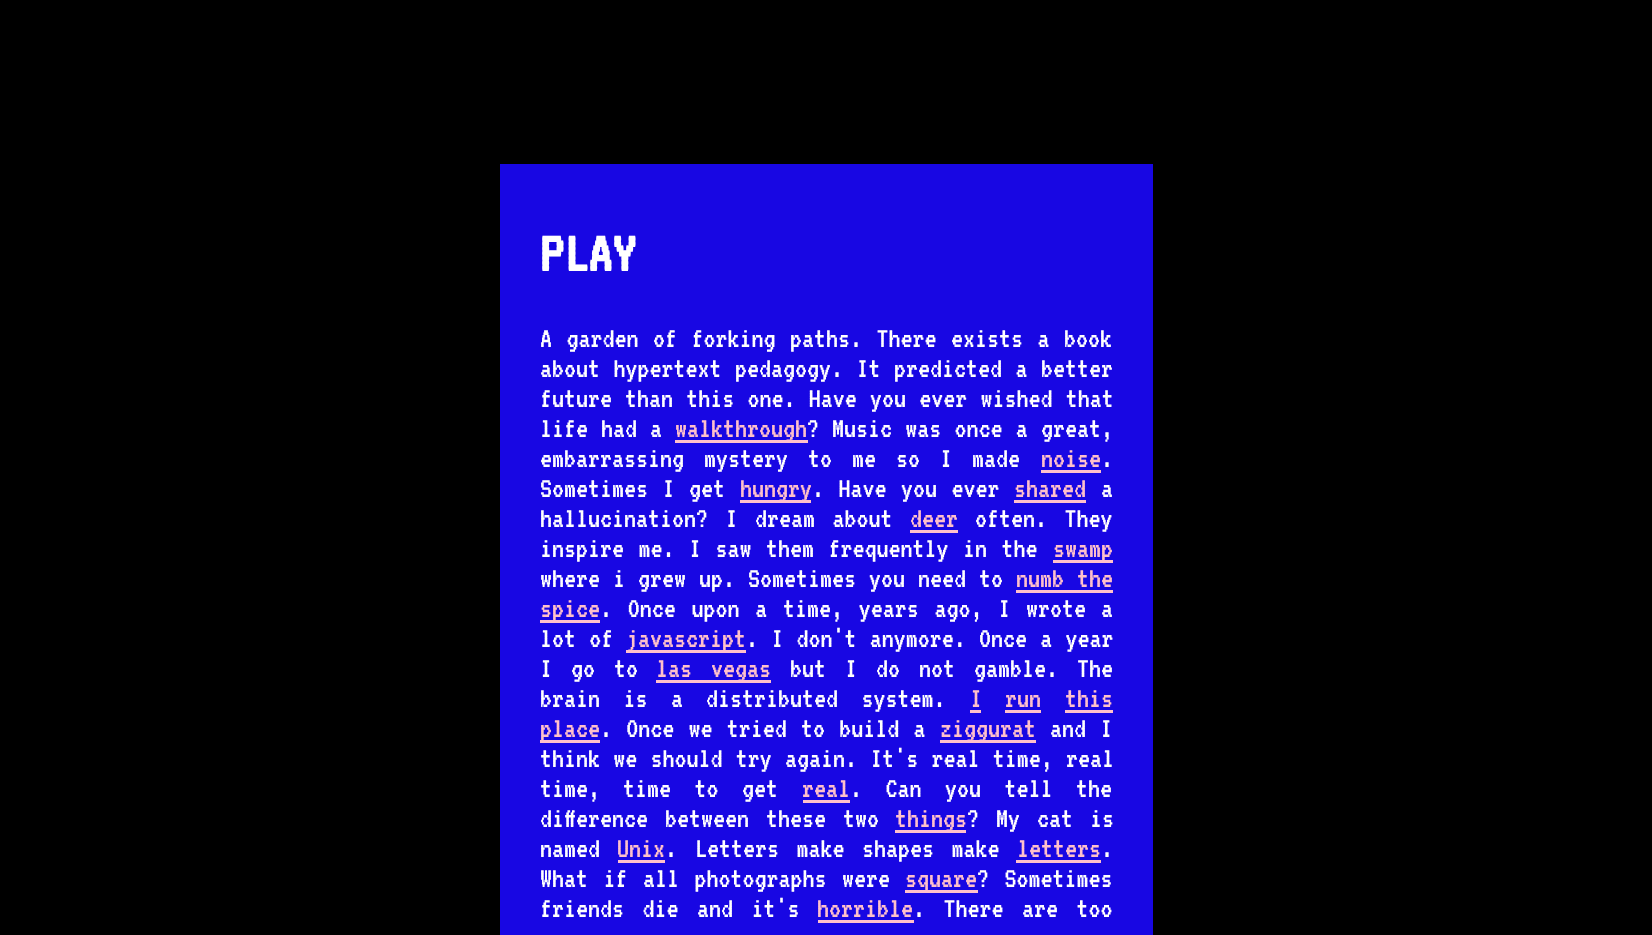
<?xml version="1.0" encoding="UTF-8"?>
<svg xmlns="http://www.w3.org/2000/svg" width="1652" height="935">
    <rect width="100%" height="100%" fill="#000000"/>
    <rect x="500" y="164" width="653" height="771" fill="#1807E3"/>
    <text x="540" y="271" font-family="'VT323'" font-size="60" font-weight="700" fill="#FFFFFF">PLAY</text>
    <text font-family="'VT323'" font-size="30" fill="#FFFFFF">
        <tspan x="540" y="347" word-spacing="2.5">A garden of forking paths. There exists a book</tspan>
        <tspan x="540" y="377" word-spacing="1.5">about hypertext pedagogy. It predicted a better</tspan>
        <tspan x="540" y="407">future</tspan>
    </text>
    <text x="625" y="407" word-spacing="1.25" font-family="'VT323'" font-size="30" fill="#FFFFFF">than this one. Have you ever wished that</text>
    <text x="540" y="437" word-spacing="1" font-family="'VT323'" font-size="30" fill="#FFFFFF">life had a</text>
    <rect x="675" y="440" width="133" height="3" fill="#FFC0CB"/>
    <text x="675" y="437" font-family="'VT323'" font-size="30" fill="#FFC0CB">walkthrough</text>
    <text x="807" y="437" font-family="'VT323'" font-size="30" fill="#FFFFFF">?</text>
    <text x="832" y="437" word-spacing="1.25" font-family="'VT323'" font-size="30" fill="#FFFFFF">Music was once a great,</text>
    <text x="540" y="467" word-spacing="8" font-family="'VT323'" font-size="30" fill="#FFFFFF">embarrassing mystery to me so I made</text>
    <text x="1041" y="467" font-family="'VT323'" font-size="30" fill="#FFC0CB">noise</text>
    <rect x="1041" y="470" width="60" height="3" fill="#FFC0CB"/>
    <text x="1101" y="467" font-family="'VT323'" font-size="30" fill="#FFFFFF">.</text>
    <text x="540" y="497" word-spacing="2.5" font-family="'VT323'" font-size="30" fill="#FFFFFF">Sometimes I get</text>
    <rect x="740" y="500" width="71" height="3" fill="#FFC0CB"/>
    <text x="740" y="497" font-family="'VT323'" font-size="30" fill="#FFC0CB">hungry</text>
    <text x="812" y="497" word-spacing="2.5" font-family="'VT323'" font-size="30" fill="#FFFFFF">. Have you ever</text>
    <text x="1014" y="497" font-family="'VT323'" font-size="30" fill="#FFC0CB">shared</text>
    <rect x="1014" y="500" width="72" height="3" fill="#FFC0CB"/>
    <text x="1101" y="497" font-family="'VT323'" font-size="30" fill="#FFFFFF">a</text>
    <text x="540" y="527" word-spacing="5.5" font-family="'VT323'" font-size="30" fill="#FFFFFF">hallucination? I dream about</text>
    <text x="910" y="527" font-family="'VT323'" font-size="30" fill="#FFC0CB">deer</text>
    <rect x="910" y="530" width="48" height="3" fill="#FFC0CB"/>
    <text x="975" y="527" word-spacing="5.5" font-family="'VT323'" font-size="30" fill="#FFFFFF">often. They</text>
    <text x="540" y="557" word-spacing="2.5" font-family="'VT323'" font-size="30" fill="#FFFFFF">inspire me. I saw them frequently in the</text>
    <rect x="1053" y="560" width="60" height="3" fill="#FFC0CB"/>
    <text x="1053" y="557" font-family="'VT323'" font-size="30" fill="#FFC0CB">swamp</text>
    <text x="540" y="587" word-spacing="1" font-family="'VT323'" font-size="30" fill="#FFFFFF">where i grew up. Sometimes you</text>
    <text x="918" y="587" word-spacing="1" font-family="'VT323'" font-size="30" fill="#FFFFFF">need to</text>
    <text x="1016" y="587" word-spacing="1" font-family="'VT323'" font-size="30" fill="#FFC0CB">numb the</text>
    <rect x="1016" y="590" width="97" height="3" fill="#FFC0CB"/>
    <rect x="540" y="620" width="60" height="3" fill="#FFC0CB"/>
    <text x="540" y="617" font-family="'VT323'" font-size="30" fill="#FFC0CB">spice</text>
    <text x="600" y="617" word-spacing="3.75" font-family="'VT323'" font-size="30" fill="#FFFFFF">. Once upon a time, years ago, I wrote</text>
    <text x="1101" y="617" font-family="'VT323'" font-size="30" fill="#FFFFFF">a</text>
    <text x="540" y="647" word-spacing="1.25" font-family="'VT323'" font-size="30" fill="#FFFFFF">lot of</text>
    <rect x="626" y="650" width="120" height="3" fill="#FFC0CB"/>
    <text x="626" y="647" font-family="'VT323'" font-size="30" fill="#FFC0CB">javascript</text>
    <text x="746" y="647" word-spacing="1.25" font-family="'VT323'" font-size="30" fill="#FFFFFF">. I don't anymore. Once a year</text>
    <text x="540" y="677" word-spacing="7" font-family="'VT323'" font-size="30" fill="#FFFFFF">I go</text>
    <text x="614" y="677" font-family="'VT323'" font-size="30" fill="#FFFFFF">to</text>
    <rect x="656" y="680" width="115" height="3" fill="#FFC0CB"/>
    <text x="656" y="677" word-spacing="7" font-family="'VT323'" font-size="30" fill="#FFC0CB">las vegas</text>
    <text x="790" y="677" word-spacing="7" font-family="'VT323'" font-size="30" fill="#FFFFFF">but I do not gamble. The</text>
    <text x="540" y="707" word-spacing="11.5" font-family="'VT323'" font-size="30" fill="#FFFFFF">brain is a</text>
    <text x="706" y="707" word-spacing="11.5" font-family="'VT323'" font-size="30" fill="#FFFFFF">distributed system.</text>
    <text x="970" y="707" font-family="'VT323'" font-size="30" fill="#FFC0CB">I</text>
    <rect x="970" y="710" width="11" height="3" fill="#FFC0CB"/>
    <text x="1005" y="707" font-family="'VT323'" font-size="30" fill="#FFC0CB">run</text>
    <rect x="1005" y="710" width="36" height="3" fill="#FFC0CB"/>
    <text x="1065" y="707" font-family="'VT323'" font-size="30" fill="#FFC0CB">this</text>
    <rect x="1065" y="710" width="48" height="3" fill="#FFC0CB"/>
    <rect x="540" y="740" width="60" height="3" fill="#FFC0CB"/>
    <text x="540" y="737" font-family="'VT323'" font-size="30" fill="#FFC0CB">place</text>
    <text x="600" y="737" word-spacing="2.25" font-family="'VT323'" font-size="30" fill="#FFFFFF">. Once we tried to build a</text>
    <rect x="940" y="740" width="96" height="3" fill="#FFC0CB"/>
    <text x="940" y="737" font-family="'VT323'" font-size="30" fill="#FFC0CB">ziggurat</text>
    <text x="1050" y="737" word-spacing="2.25" font-family="'VT323'" font-size="30" fill="#FFFFFF">and I</text>
    <text font-family="'VT323'" font-size="30" fill="#FFFFFF">
        <tspan x="540" y="767" word-spacing="1.25">think we should try again. It's real time, real</tspan>
        <tspan x="540" y="797">time,</tspan>
    </text>
    <text x="623" y="797" word-spacing="11.5" font-family="'VT323'" font-size="30" fill="#FFFFFF">time to get</text>
    <text x="802" y="797" font-family="'VT323'" font-size="30" fill="#FFC0CB">real</text>
    <rect x="803" y="800" width="47" height="3" fill="#FFC0CB"/>
    <text x="850" y="797" word-spacing="11.5" font-family="'VT323'" font-size="30" fill="#FFFFFF">. Can you tell the</text>
    <text x="540" y="827" word-spacing="5" font-family="'VT323'" font-size="30" fill="#FFFFFF">difference between these two</text>
    <rect x="895" y="830" width="71" height="3" fill="#FFC0CB"/>
    <text x="895" y="827" font-family="'VT323'" font-size="30" fill="#FFC0CB">things</text>
    <text x="967" y="827" word-spacing="5" font-family="'VT323'" font-size="30" fill="#FFFFFF">? My cat is</text>
    <text x="540" y="857" font-family="'VT323'" font-size="30" fill="#FFFFFF">named</text>
    <text x="617" y="857" font-family="'VT323'" font-size="30" fill="#FFC0CB">Unix</text>
    <rect x="618" y="860" width="47" height="3" fill="#FFC0CB"/>
    <text x="665" y="857" font-family="'VT323'" font-size="30" fill="#FFFFFF">.</text>
    <text x="695" y="857" word-spacing="5.5" font-family="'VT323'" font-size="30" fill="#FFFFFF">Letters make shapes make</text>
    <text x="1017" y="857" font-family="'VT323'" font-size="30" fill="#FFC0CB">letters</text>
    <rect x="1016" y="860" width="85" height="3" fill="#FFC0CB"/>
    <text x="1101" y="857" font-family="'VT323'" font-size="30" fill="#FFFFFF">.</text>
    <text x="540" y="887" word-spacing="3.5" font-family="'VT323'" font-size="30" fill="#FFFFFF">What if all photographs</text>
    <text x="842" y="887" font-family="'VT323'" font-size="30" fill="#FFFFFF">were</text>
    <rect x="905" y="890" width="73" height="3" fill="#FFC0CB"/>
    <text x="905" y="887" font-family="'VT323'" font-size="30" fill="#FFC0CB">square</text>
    <text x="977" y="887" word-spacing="3.5" font-family="'VT323'" font-size="30" fill="#FFFFFF">? Sometimes</text>
    <text x="540" y="917" word-spacing="6.5" font-family="'VT323'" font-size="30" fill="#FFFFFF">friends die and it's</text>
    <text x="817" y="917" font-family="'VT323'" font-size="30" fill="#FFC0CB">horrible</text>
    <rect x="818" y="920" width="96" height="3" fill="#FFC0CB"/>
    <text x="913" y="917" word-spacing="6.5" font-family="'VT323'" font-size="30" fill="#FFFFFF">. There are too</text>
</svg>
